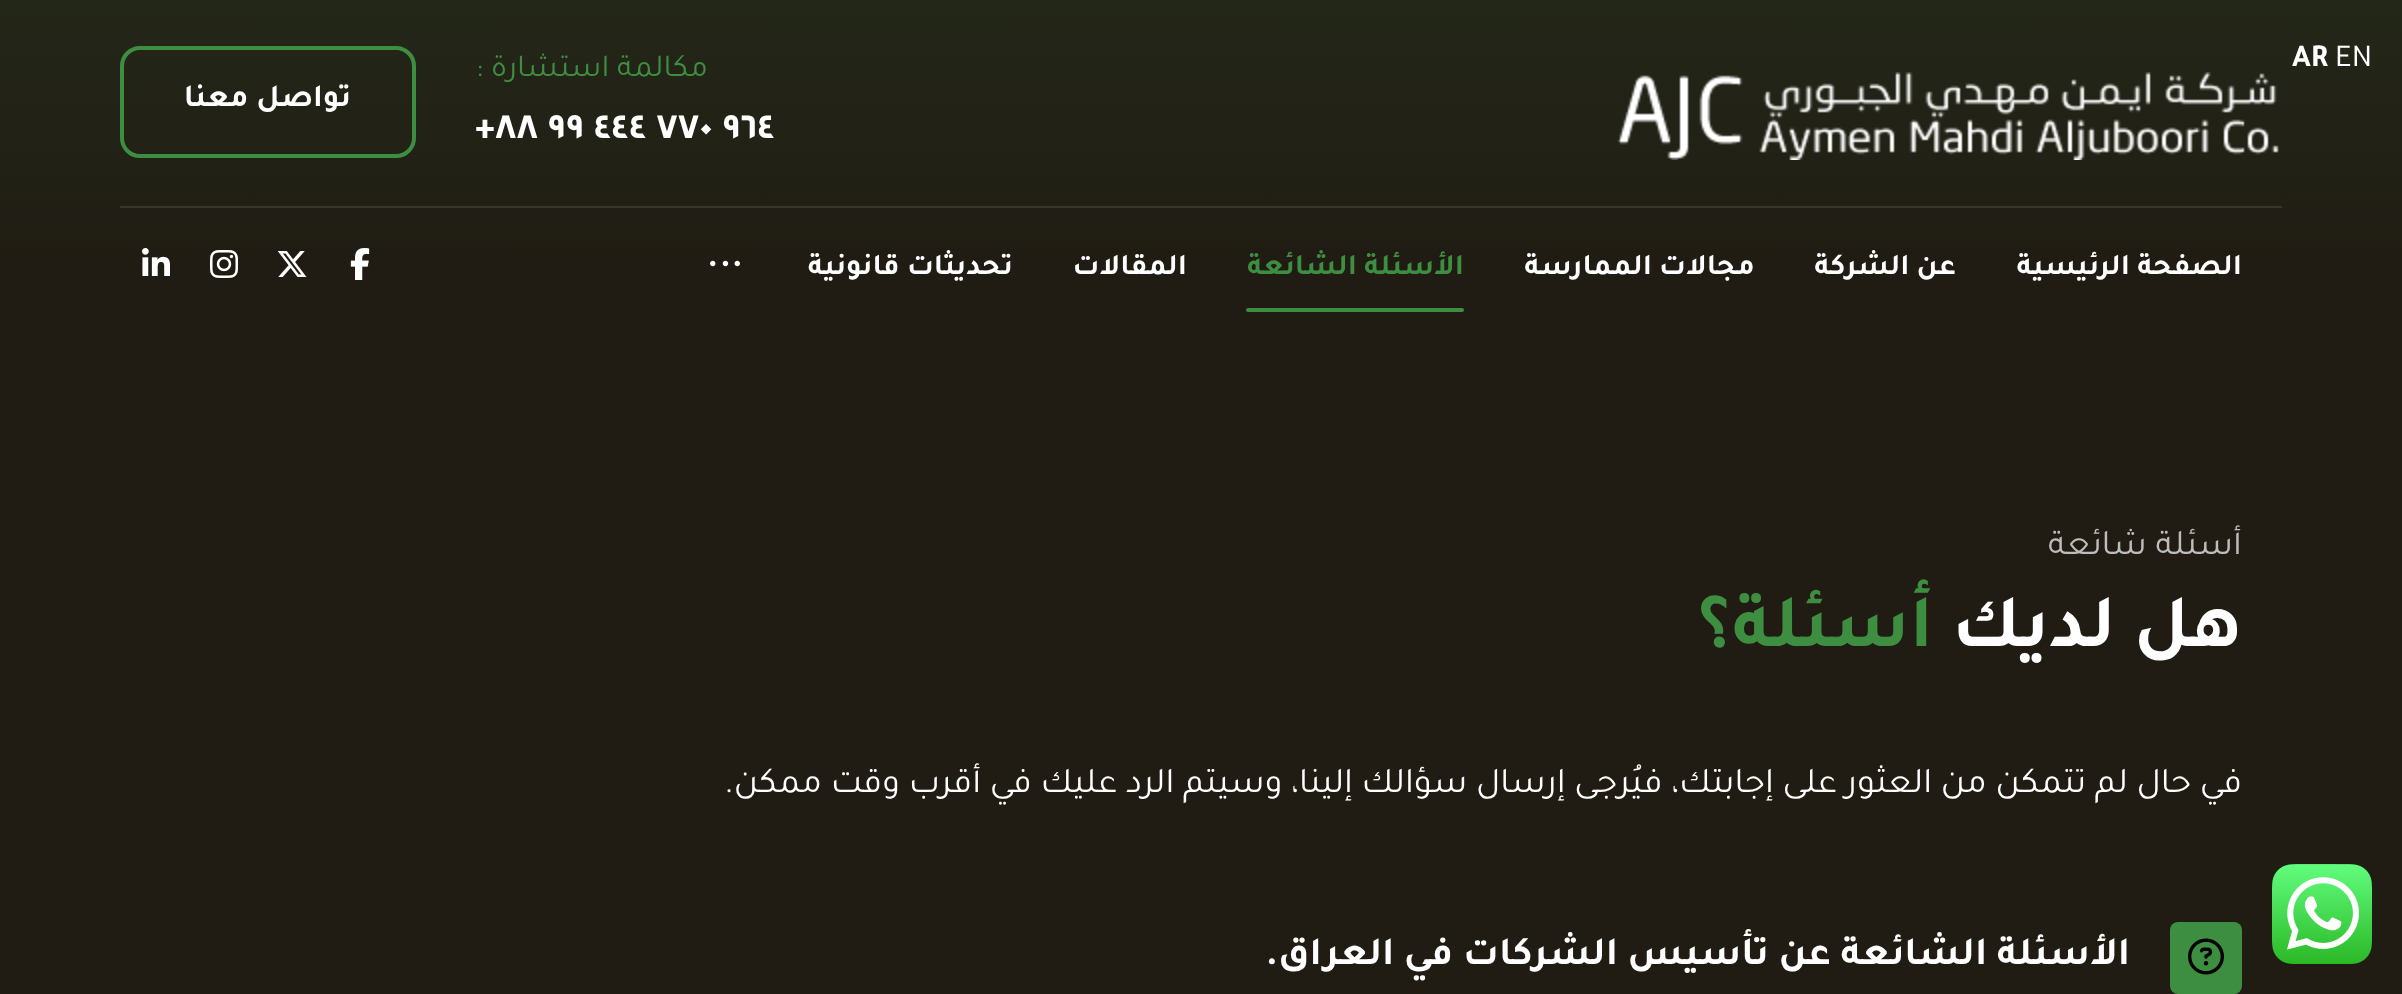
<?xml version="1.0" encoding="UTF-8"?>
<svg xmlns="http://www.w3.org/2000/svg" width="2402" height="994">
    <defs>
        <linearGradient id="g1" gradientUnits="userSpaceOnUse" x1="1201" y1="0" x2="1201" y2="312"><stop offset="0" stop-color="#232718"/><stop offset="1" stop-color="#201B13"/></linearGradient>
    </defs>
    <rect width="100%" height="100%" fill="#201B13"/>
    <rect x="0" y="0" width="2402" height="247" fill="url(#g1)"/>
    <text x="2335" y="66" font-family="Tajawal" font-size="32" fill="#FFFFFF">EN</text>
    <text x="2292" y="66" font-family="Tajawal" font-size="32" font-weight="700" fill="#FFFFFF">AR</text>
    <rect x="120" y="206" width="2162" height="2" fill="#37352C"/>
    <image x="1617" y="72" width="662" height="88" href="img_01.png"/>
    <text x="708" y="76" font-family="Tajawal" font-size="32" direction="rtl" fill="#3E8E41">مكالمة استشارة :</text>
    <text x="475" y="138" font-family="Tajawal" font-size="40" font-weight="700" fill="#FFFFFF">+٩٦٤ ٧٧٠ ٤٤٤ ٩٩ ٨٨</text>
    <rect x="122" y="48" width="292" height="108" rx="18" fill="none" stroke="#3E8E41" stroke-width="4"/>
    <text x="351" y="106" font-family="Tajawal" font-size="32" font-weight="700" direction="rtl" fill="#FFFFFF">تواصل معنا</text>
    <text x="2242" y="274" font-family="Tajawal" font-size="30" font-weight="700" direction="rtl" fill="#FFFFFF">الصفحة الرئيسية</text>
    <text x="1956" y="274" font-family="Tajawal" font-size="30" font-weight="700" direction="rtl" fill="#FFFFFF">عن الشركة</text>
    <text x="1755" y="274" font-family="Tajawal" font-size="30" font-weight="700" direction="rtl" fill="#FFFFFF">مجالات الممارسة</text>
    <text x="1464" y="274" font-family="Tajawal" font-size="30" font-weight="700" direction="rtl" fill="#3E8E41">الأسئلة الشائعة</text>
    <rect x="1246" y="308" width="218" height="4" rx="2" fill="#3E8E41"/>
    <text x="1187" y="274" font-family="Tajawal" font-size="30" font-weight="700" direction="rtl" fill="#FFFFFF">المقالات</text>
    <text x="1013" y="274" font-family="Tajawal" font-size="30" font-weight="700" direction="rtl" fill="#FFFFFF">تحديثات قانونية</text>
    <image x="710" y="260" width="30" height="7" href="img_02.png"/>
    <image x="350" y="248" width="20" height="32" href="img_03.png"/>
    <image x="277" y="251" width="30" height="26" href="img_04.png"/>
    <image x="210" y="250" width="28" height="28" href="img_05.png"/>
    <image x="142" y="248" width="28" height="28" href="img_06.png"/>
    <text x="2242" y="554" font-family="Tajawal" font-size="36" direction="rtl" fill="#BDBDBD">أسئلة شائعة</text>
    <text x="2242" y="646" font-family="Tajawal" font-size="76" font-weight="700" direction="rtl" fill="#FFFFFF">هل لديك</text>
    <text x="1933" y="646" font-family="Tajawal" font-size="76" font-weight="700" direction="rtl" fill="#3E8E41">أسئلة؟</text>
    <text x="2242" y="792" font-family="Tajawal" font-size="36" direction="rtl" fill="#FFFFFF">في حال لم تتمكن من العثور على إجابتك، فيُرجى إرسال سؤالك إلينا، وسيتم الرد عليك في أقرب وقت ممكن.</text>
    <rect x="2170" y="922" width="72" height="72" rx="8" fill="#3E8E41"/>
    <image x="2188" y="938" width="36" height="37" href="img_07.png"/>
    <text x="2130" y="964" font-family="Tajawal" font-size="40" font-weight="700" direction="rtl" fill="#FFFFFF">الأسئلة الشائعة عن تأسيس الشركات في العراق.</text>
    <image x="2272" y="864" width="100" height="100" href="img_08.png"/>
</svg>
